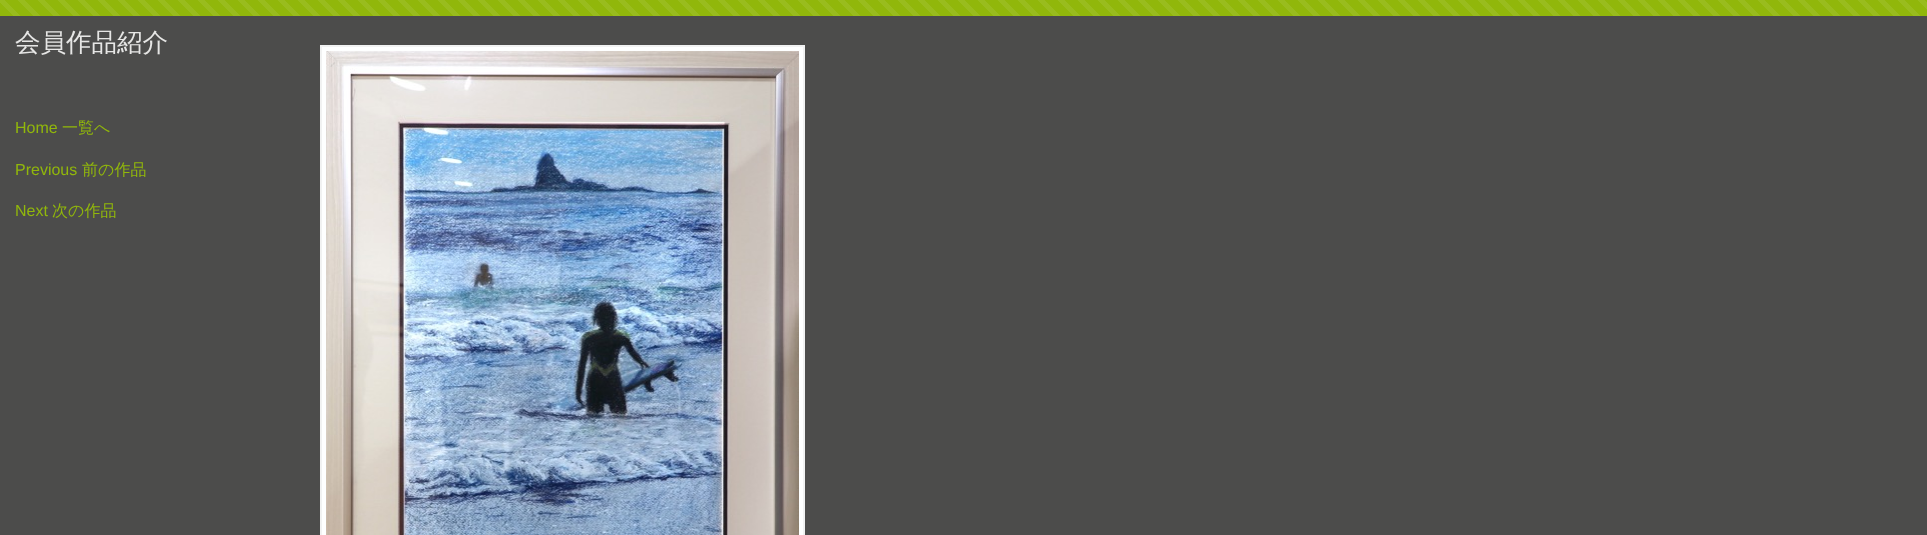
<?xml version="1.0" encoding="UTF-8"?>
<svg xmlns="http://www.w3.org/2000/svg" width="1927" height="535">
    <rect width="100%" height="100%" fill="#4C4C4B"/>
    <rect x="0" y="0" width="1927" height="16" fill="#91B70B"/>
    <image x="0" y="0" width="1927" height="16" href="img_01.png"/>
    <text x="15" y="51" font-family="WenQuanYi Zen Hei" font-size="25.5" font-weight="500" fill="#E6E6E5">会員作品紹介</text>
    <text x="15" y="133" font-family="Liberation Sans" font-size="16" fill="#91B70B">Home</text>
    <text x="62" y="133" font-family="WenQuanYi Zen Hei" font-size="16" font-weight="500" fill="#91B70B">一覧へ</text>
    <text x="15" y="175" font-family="Liberation Sans" font-size="16" fill="#91B70B">Previous</text>
    <text x="82" y="175" font-family="WenQuanYi Zen Hei" font-size="16" font-weight="500" fill="#91B70B">前の作品</text>
    <text x="15" y="216" font-family="Liberation Sans" font-size="16" fill="#91B70B">Next</text>
    <text x="52" y="216" font-family="WenQuanYi Zen Hei" font-size="16" font-weight="500" fill="#91B70B">次の作品</text>
    <rect x="321" y="46" width="483" height="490" fill="#FEFFFF" stroke="#F1F2F2" stroke-width="2"/>
    <image x="326" y="51" width="473" height="484" href="img_02.png"/>
</svg>
